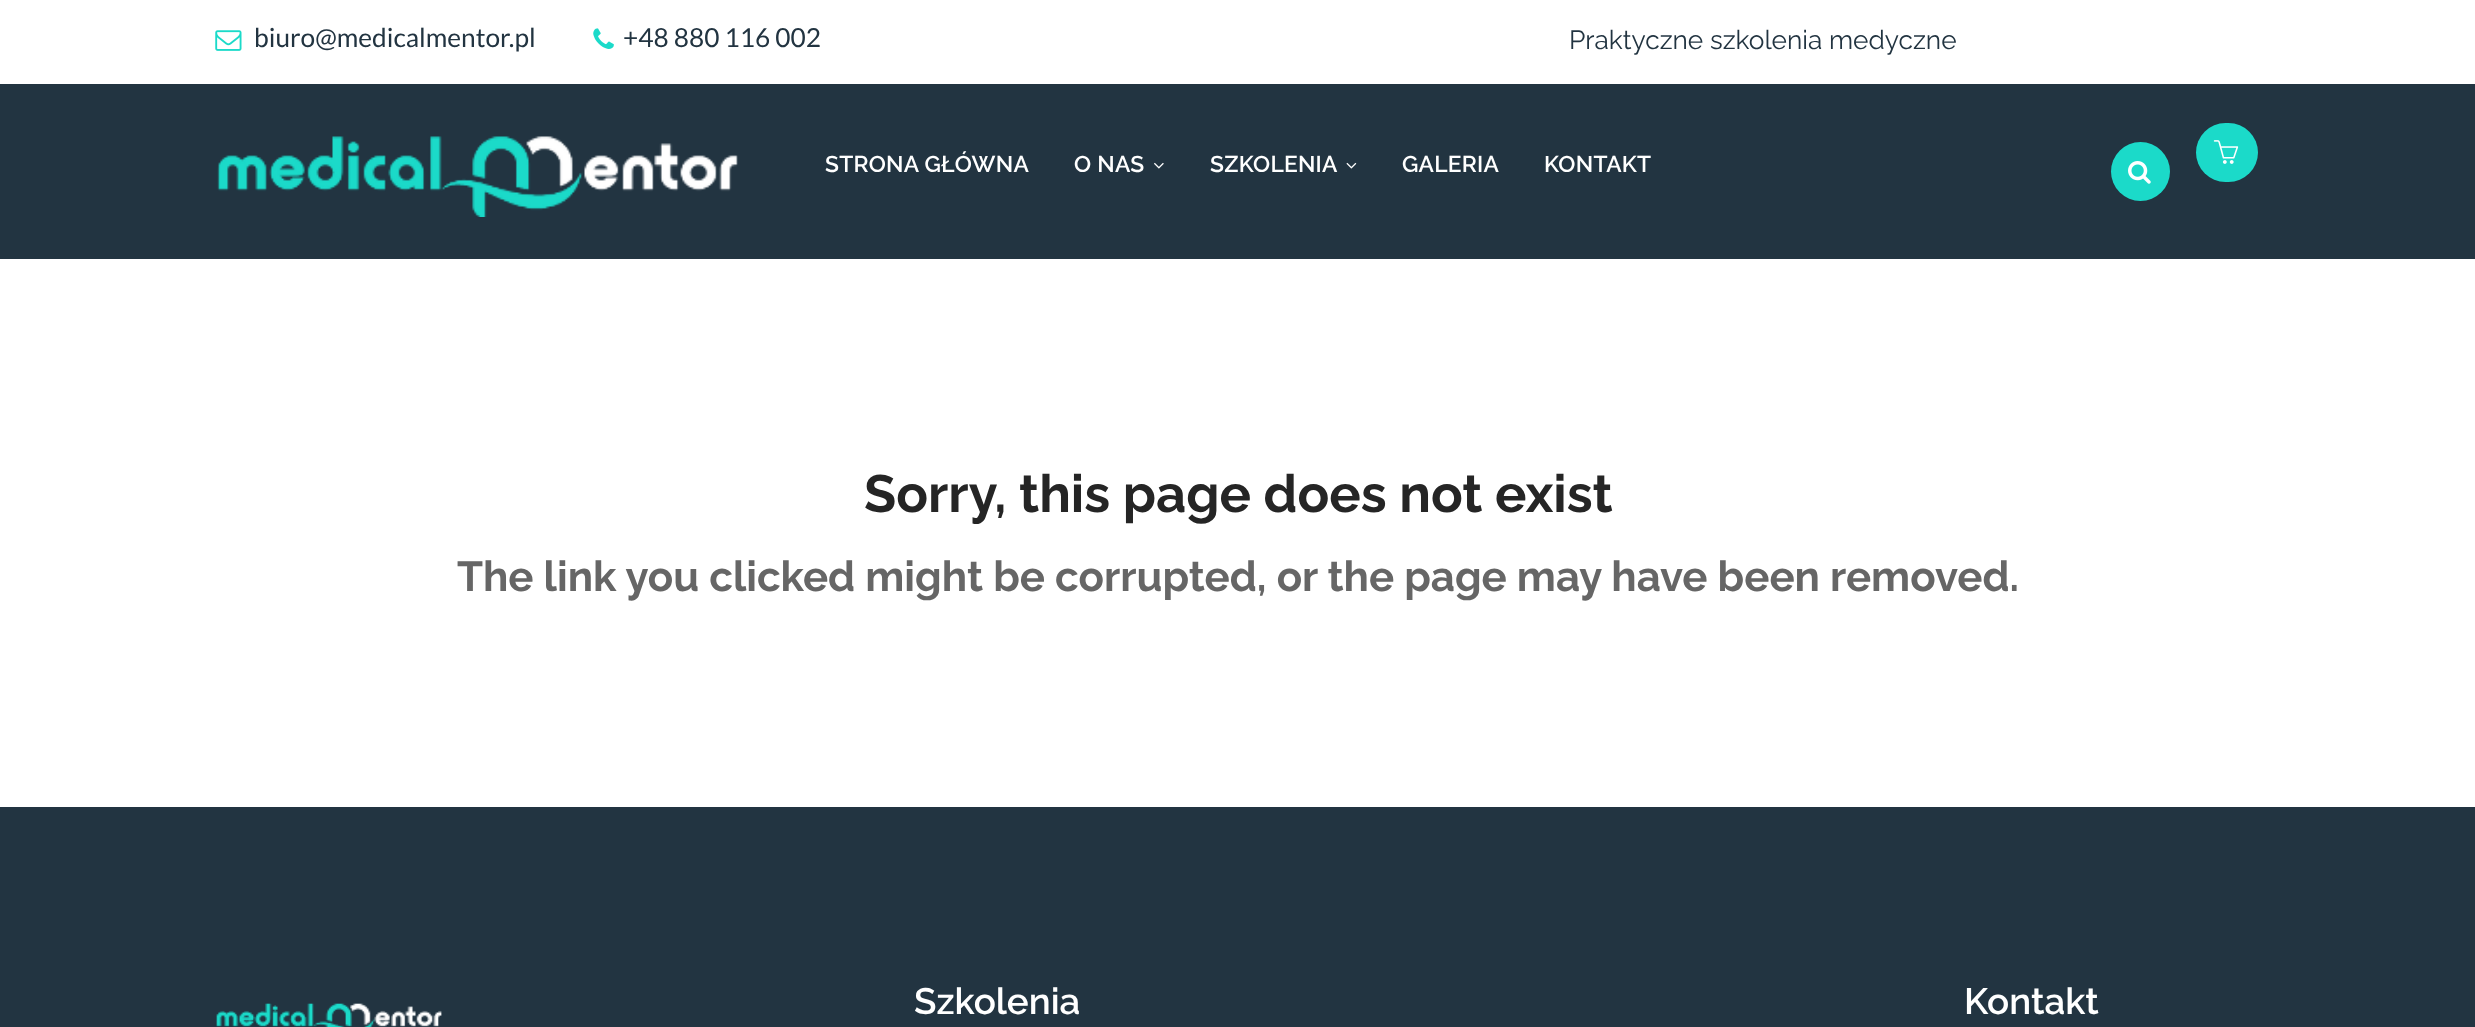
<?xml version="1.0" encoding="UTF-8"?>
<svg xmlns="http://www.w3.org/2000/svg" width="2475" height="1027">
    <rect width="100%" height="100%" fill="#FFFFFF"/>
    <image x="215" y="30" width="27" height="21" href="img_01.png"/>
    <text x="254" y="47" font-family="Lato" font-size="26.25" fill="#223441">biuro@medicalmentor.pl</text>
    <image x="593" y="28" width="21" height="21" href="img_02.png"/>
    <text x="623" y="47" font-family="Lato" font-size="26.25" fill="#223441">+48 880 116 002</text>
    <text x="1569" y="49" font-family="Raleway" font-size="26.25" font-weight="100" fill="#223441">Praktyczne szkolenia medyczne</text>
    <rect x="0" y="84" width="2475" height="175" fill="#223441"/>
    <image x="217" y="136" width="521" height="81" href="img_03.png"/>
    <text x="825" y="172" font-family="Raleway" font-size="22.75" font-weight="600" letter-spacing="0.25" fill="#FFFFFF">STRONA GŁÓWNA</text>
    <text x="1074" y="172" font-family="Raleway" font-size="22.75" font-weight="600" letter-spacing="0.25" fill="#FFFFFF">O NAS</text>
    <image x="1154" y="162" width="10" height="7" href="img_04.png"/>
    <text x="1210" y="172" font-family="Raleway" font-size="22.75" font-weight="600" letter-spacing="0.25" fill="#FFFFFF">SZKOLENIA</text>
    <image x="1346" y="162" width="11" height="7" href="img_05.png"/>
    <text x="1402" y="172" font-family="Raleway" font-size="22.75" font-weight="600" letter-spacing="0.25" fill="#FFFFFF">GALERIA</text>
    <text x="1544" y="172" font-family="Raleway" font-size="22.75" font-weight="600" letter-spacing="0.25" fill="#FFFFFF">KONTAKT</text>
    <circle cx="2140.5" cy="171.5" r="29.5" fill="#1BDAC9"/>
    <image x="2128" y="161" width="23" height="23" href="img_06.png"/>
    <rect x="2196" y="123" width="62" height="59" rx="29.5" fill="#1BDAC9"/>
    <image x="2213" y="140" width="26" height="24" href="img_07.png"/>
    <text x="864" y="512" font-family="Raleway" font-size="52.5" font-weight="700" fill="#252525">Sorry, this page does not exist</text>
    <text x="457" y="591" font-family="Raleway" font-size="42" font-weight="700" fill="#666666">The link you clicked might be corrupted, or the page may have been removed.</text>
    <rect x="0" y="807" width="2475" height="220" fill="#223441"/>
    <image x="216" y="1003" width="226" height="24" href="img_08.png"/>
    <text x="914" y="1014" font-family="Raleway" font-size="36.75" font-weight="600" fill="#FFFFFF">Szkolenia</text>
    <text x="1964" y="1014" font-family="Raleway" font-size="36.75" font-weight="600" fill="#FFFFFF">Kontakt</text>
</svg>
